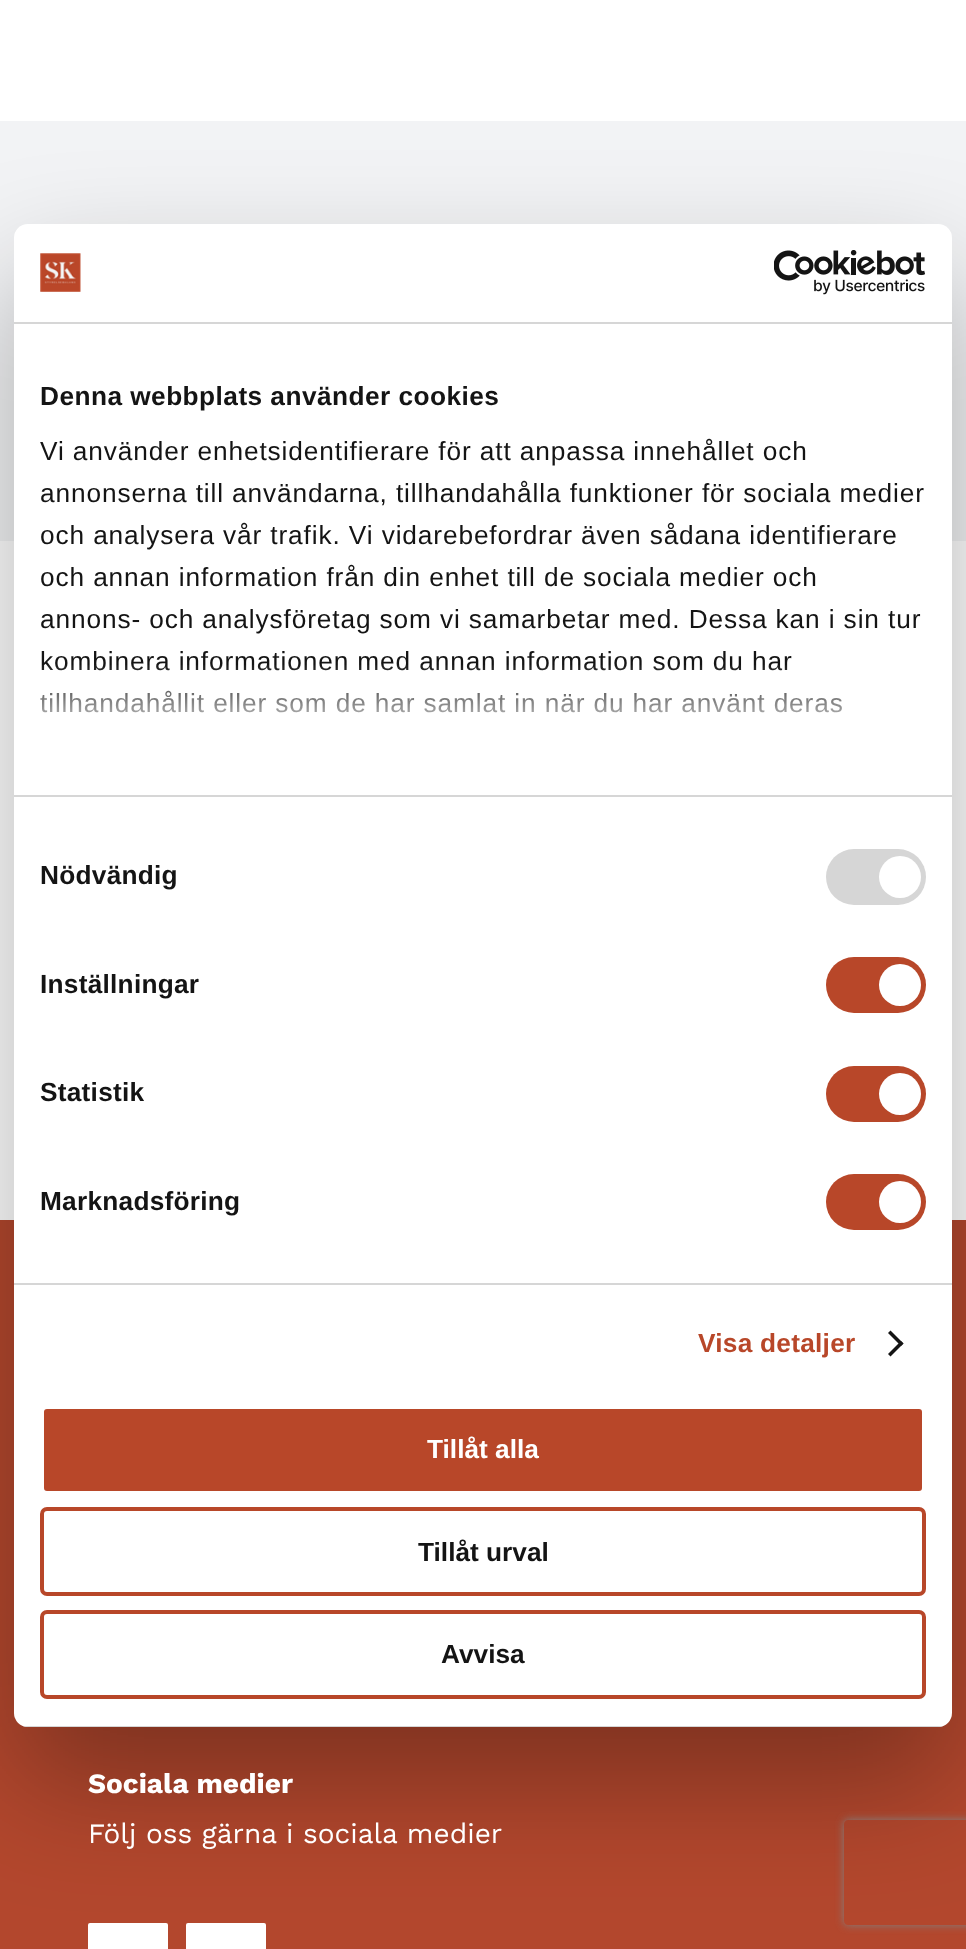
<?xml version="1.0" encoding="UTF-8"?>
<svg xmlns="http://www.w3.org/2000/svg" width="966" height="1949">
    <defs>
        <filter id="blur1" x="-50%" y="-200%" width="200%" height="500%"><feGaussianBlur stdDeviation="59.5"/></filter>
        <linearGradient id="g1" gradientUnits="userSpaceOnUse" x1="472" y1="794" x2="472" y2="663"><stop offset="0" stop-color="#FFFFFF"/><stop offset="0.5" stop-color="#FFFFFF" stop-opacity="0.8"/><stop offset="1" stop-color="#FFFFFF" stop-opacity="0"/></linearGradient>
        <clipPath id="clip1"><rect x="14" y="224" width="938" height="1503" rx="14"/></clipPath>
        <clipPath id="clip2"><path d="M 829 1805 H 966 V 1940 H 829 Z M 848 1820 H 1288 C 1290 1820 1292 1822 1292 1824 V 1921 C 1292 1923 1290 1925 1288 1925 H 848 C 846 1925 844 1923 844 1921 V 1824 C 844 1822 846 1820 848 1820 Z" clip-rule="evenodd"/></clipPath>
        <filter id="blur2" x="-50%" y="-200%" width="200%" height="500%"><feGaussianBlur stdDeviation="4.5"/></filter>
    </defs>
    <rect width="100%" height="100%" fill="#FFFFFF"/>
    <rect x="0" y="121" width="966" height="420" fill="#F2F3F5"/>
    <rect x="0" y="1220" width="966" height="729" fill="#B3472D"/>
    <rect x="88" y="1923" width="80" height="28" rx="2" fill="#FFFFFF"/>
    <rect x="186" y="1923" width="80" height="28" rx="2" fill="#FFFFFF"/>
    <rect x="14" y="280" width="938" height="1503" rx="14" fill="#000000" fill-opacity="0.3" filter="url(#blur1)"/>
    <rect x="14" y="224" width="938" height="1503" rx="14" fill="#FFFFFF"/>
    <rect x="14" y="322" width="938" height="2" fill="#D6D6D6"/>
    <image x="40" y="253" width="41" height="39" href="img_01.png"/>
    <image x="774" y="250" width="151" height="45" href="img_02.png"/>
    <rect x="14" y="795" width="938" height="2" fill="#D6D6D6"/>
    <text x="40" y="405" font-family="Liberation Sans" font-size="26.25" font-weight="700" letter-spacing="0.45" fill="#141414">Denna webbplats använder cookies</text>
    <text font-family="Liberation Sans" font-size="26.25" letter-spacing="0.88" fill="#141414">
        <tspan x="40" y="460">Vi använder enhetsidentifierare för att anpassa innehållet och</tspan>
        <tspan x="40" y="502">annonserna till användarna, tillhandahålla funktioner för sociala medier</tspan>
        <tspan x="40" y="544">och analysera vår trafik. Vi vidarebefordrar även sådana identifierare</tspan>
        <tspan x="40" y="586">och annan information från din enhet till de sociala medier och</tspan>
        <tspan x="40" y="628">annons- och analysföretag som vi samarbetar med. Dessa kan i sin tur</tspan>
        <tspan x="40" y="670">kombinera informationen med annan information som du har</tspan>
        <tspan x="40" y="712">tillhandahållit eller som de har samlat in när du har använt deras</tspan>
    </text>
    <rect x="40" y="665" width="802" height="48" fill="url(#g1)"/>
    <rect x="14" y="1283" width="938" height="2" fill="#D6D6D6"/>
    <text x="40" y="884" font-family="Liberation Sans" font-size="26.25" font-weight="700" letter-spacing="0.25" fill="#141414">Nödvändig</text>
    <rect x="826" y="849" width="100" height="56" rx="28" fill="#D6D6D6"/>
    <circle cx="900" cy="877" r="21" fill="#FFFFFF"/>
    <text x="40" y="993" font-family="Liberation Sans" font-size="26.25" font-weight="700" letter-spacing="0.25" fill="#141414">Inställningar</text>
    <rect x="826" y="957" width="100" height="56" rx="28" fill="#B84729"/>
    <circle cx="900" cy="985" r="21" fill="#FFFFFF"/>
    <text x="40" y="1101" font-family="Liberation Sans" font-size="26.25" font-weight="700" letter-spacing="0.25" fill="#141414">Statistik</text>
    <rect x="826" y="1066" width="100" height="56" rx="28" fill="#B84729"/>
    <circle cx="900" cy="1094" r="21" fill="#FFFFFF"/>
    <text x="40" y="1210" font-family="Liberation Sans" font-size="26.25" font-weight="700" letter-spacing="0.25" fill="#141414">Marknadsföring</text>
    <rect x="826" y="1174" width="100" height="56" rx="28" fill="#B84729"/>
    <circle cx="900" cy="1202" r="21" fill="#FFFFFF"/>
    <text x="698" y="1352" font-family="Liberation Sans" font-size="26.25" font-weight="700" letter-spacing="0.25" fill="#B84729">Visa detaljer</text>
    <path d="M 890.5 1330.5 L 903.5 1343.5 L 901 1346 L 888 1333 Z" fill="#141414"/>
    <path d="M 901 1341 L 903.5 1343.5 L 890.5 1356.5 L 888 1354 Z" fill="#141414"/>
    <g clip-path="url(#clip1)">
        <rect x="23" y="1726" width="920" height="1" fill="#D6D6D6"/>
    </g>
    <rect x="42" y="1407" width="882" height="86" rx="5" fill="#B84729" stroke="#FFFFFF" stroke-width="4"/>
    <text x="427" y="1458" font-family="Liberation Sans" font-size="26.25" font-weight="700" fill="#FFFFFF">Tillåt alla</text>
    <rect x="42" y="1509" width="882" height="85" rx="5" fill="none" stroke="#B84729" stroke-width="4"/>
    <text x="418" y="1561" font-family="Liberation Sans" font-size="26.25" font-weight="700" fill="#141414">Tillåt urval</text>
    <rect x="42" y="1612" width="882" height="85" rx="5" fill="none" stroke="#B84729" stroke-width="4"/>
    <text x="441" y="1663" font-family="Liberation Sans" font-size="26.25" font-weight="700" fill="#141414">Avvisa</text>
    <text x="88" y="1793" font-family="Work Sans" font-size="28" font-weight="700" fill="#FFFFFF">Sociala medier</text>
    <text x="88" y="1843" font-family="Work Sans" font-size="28" fill="#FFFFFF">Följ oss gärna i sociala medier</text>
    <g clip-path="url(#clip2)">
        <rect x="844" y="1820" width="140" height="105" rx="4" fill="#808080" filter="url(#blur2)"/>
    </g>
</svg>
